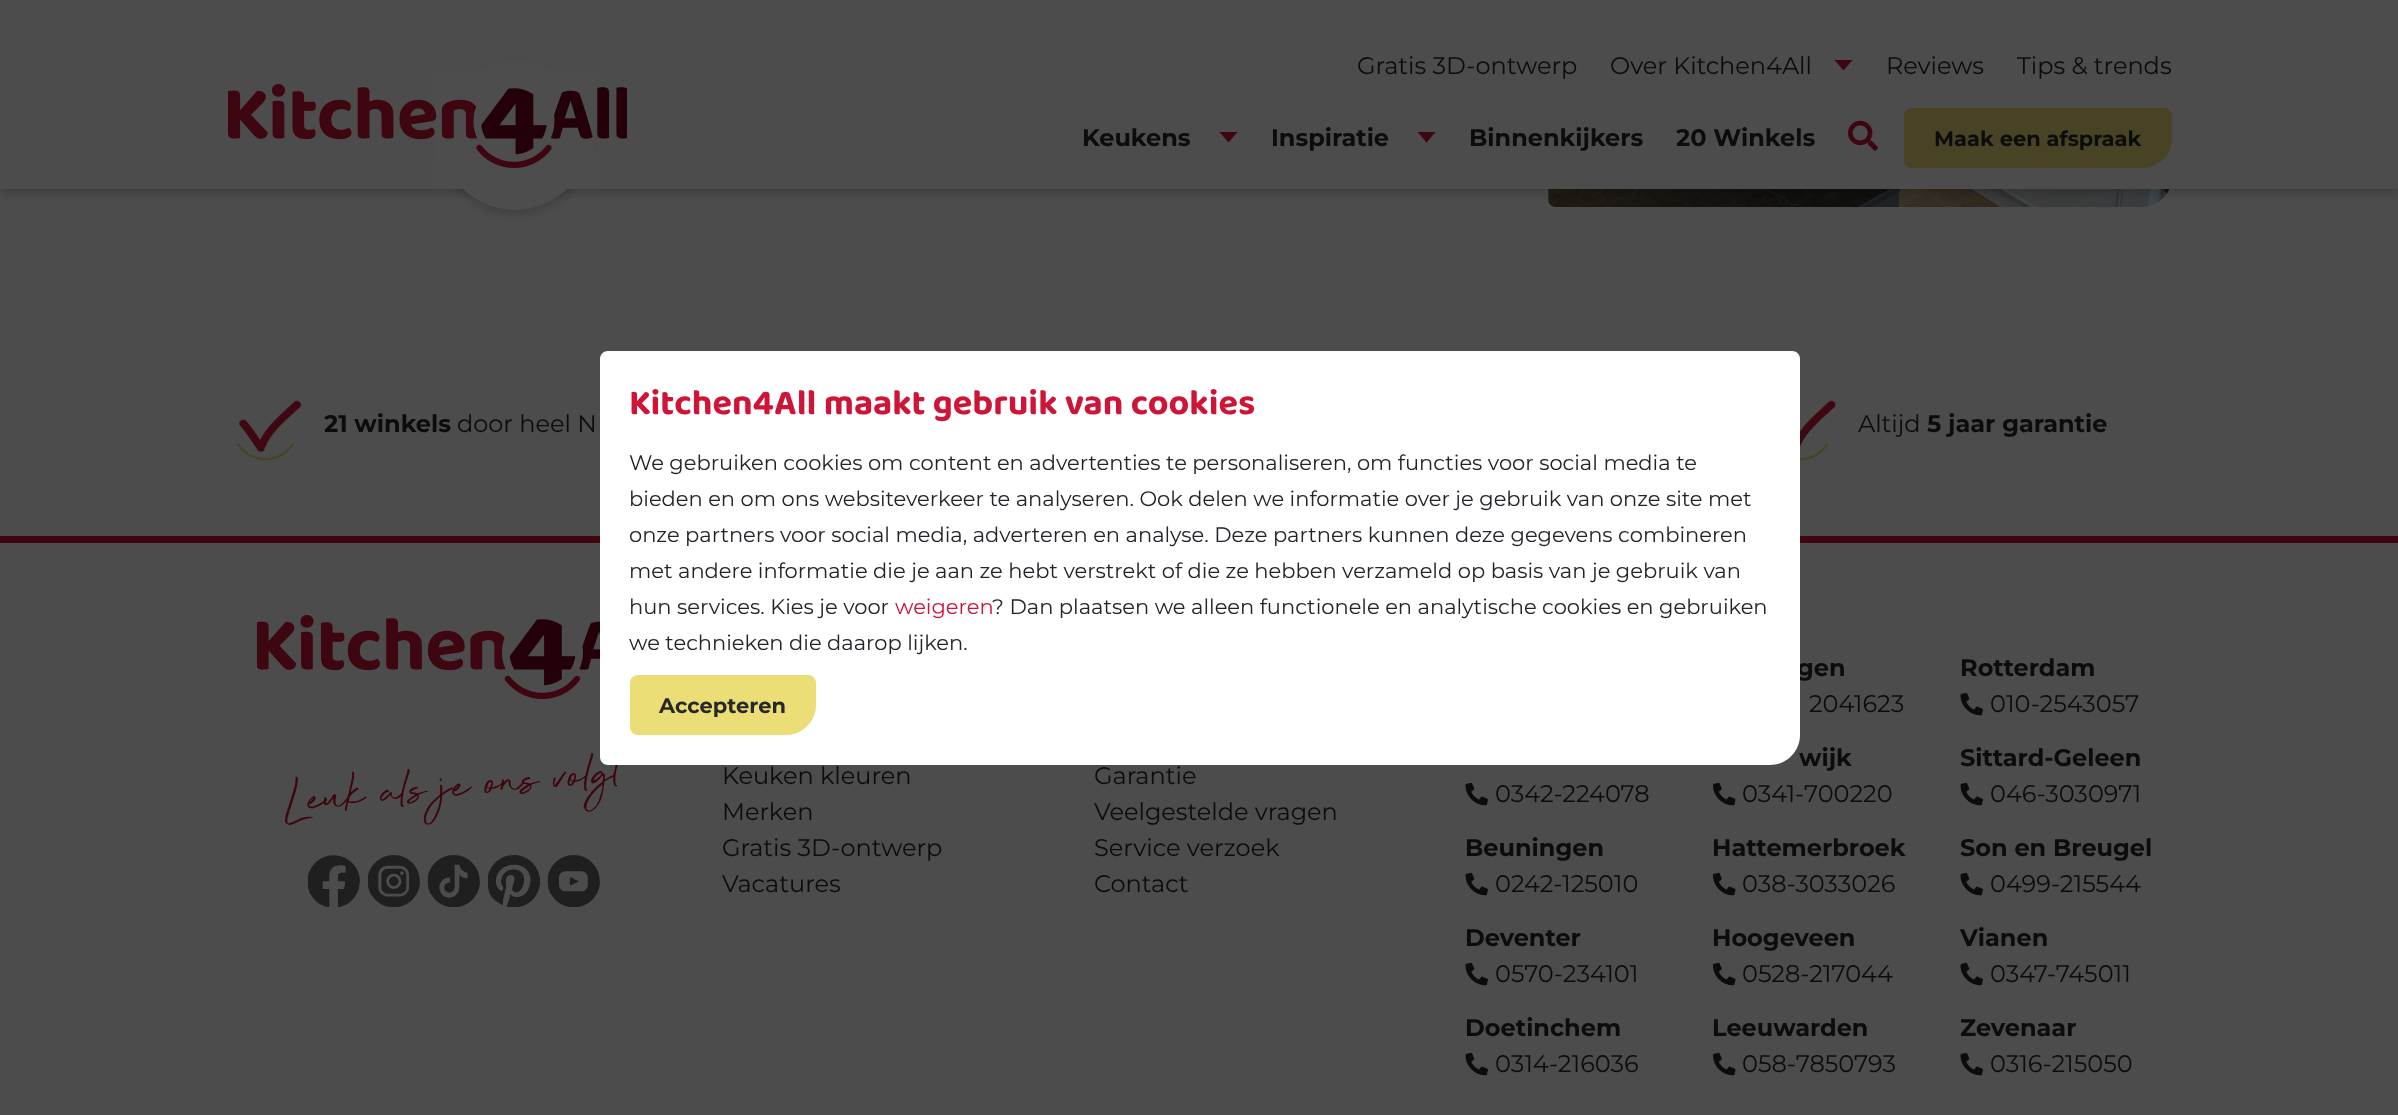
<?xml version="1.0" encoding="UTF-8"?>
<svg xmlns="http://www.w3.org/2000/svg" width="2398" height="1115">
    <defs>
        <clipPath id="clip1"><rect x="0" y="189" width="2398" height="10"/></clipPath>
        <filter id="blur1" x="-50%" y="-200%" width="200%" height="500%"><feGaussianBlur stdDeviation="4.5"/></filter>
    </defs>
    <rect width="100%" height="100%" fill="#4C4C4C"/>
    <path d="M 1834.5 60 H 1852.5 L 1843.5 70.5 Z" fill="#3E0611"/>
    <path d="M 1219.5 132 H 1237.5 L 1228.5 142.5 Z" fill="#3E0611"/>
    <path d="M 1417.5 132 H 1435.5 L 1426.5 142.5 Z" fill="#3E0611"/>
    <image x="1848" y="120" width="30" height="31" href="img_02.png"/>
    <path d="M 1912 108 H 2164 C 2168.5 108 2172 111.5 2172 116 V 138 C 2172 154.5 2158.5 168 2142 168 H 1912 C 1907.5 168 1904 164.5 1904 160 V 116 C 1904 111.5 1907.5 108 1912 108 Z" fill="#474324"/>
    <image x="1548" y="189" width="1" height="14" href="img_03.png"/>
    <image x="1548" y="189" width="622" height="18" href="img_04.png"/>
    <g clip-path="url(#clip1)">
        <rect x="0" y="5" width="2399" height="189" fill="#000000" fill-opacity="0.16" filter="url(#blur1)"/>
    </g>
    <rect x="440" y="65" width="150" height="150" rx="75" fill="#000000" fill-opacity="0.16" filter="url(#blur1)"/>
    <circle cx="515" cy="135" r="75" fill="#4D4D4D"/>
    <rect x="435" y="72" width="160" height="117" fill="#4D4D4D"/>
    <image x="228" y="84" width="399" height="84" href="img_01.png"/>
    <text x="1357" y="74" font-family="Montserrat" font-size="24" fill="#0C0C0C">Gratis 3D-ontwerp</text>
    <text x="1610" y="74" font-family="Montserrat" font-size="24" fill="#0C0C0C">Over Kitchen4All</text>
    <text x="1886" y="74" font-family="Montserrat" font-size="24" fill="#0C0C0C">Reviews</text>
    <text x="2017" y="74" font-family="Montserrat" font-size="24" fill="#0C0C0C">Tips &amp; trends</text>
    <text x="1082" y="146" font-family="Montserrat" font-size="24" font-weight="700" fill="#0C0C0C">Keukens</text>
    <text x="1271" y="146" font-family="Montserrat" font-size="24" font-weight="700" fill="#0C0C0C">Inspiratie</text>
    <text x="1469" y="146" font-family="Montserrat" font-size="24" font-weight="700" fill="#0C0C0C">Binnenkijkers</text>
    <text x="1676" y="146" font-family="Montserrat" font-size="24" font-weight="700" fill="#0C0C0C">20 Winkels</text>
    <text x="1934" y="146" font-family="Montserrat" font-size="21" font-weight="700" fill="#0C0C0C">Maak een afspraak</text>
    <image x="236" y="400" width="66" height="61" href="img_05.png"/>
    <text x="324" y="432" font-family="Montserrat" font-size="24" font-weight="700" fill="#0C0C0C">21 winkels</text>
    <text x="457" y="432" font-family="Montserrat" font-size="24" fill="#0C0C0C">door heel N</text>
    <image x="1800" y="400" width="36" height="61" href="img_06.png"/>
    <text x="1858" y="432" font-family="Montserrat" font-size="24" fill="#0C0C0C">Altijd</text>
    <text x="1927" y="432" font-family="Montserrat" font-size="24" font-weight="700" fill="#0C0C0C">5 jaar garantie</text>
    <rect x="0" y="536" width="2398" height="7" fill="#3E0611"/>
    <image x="257" y="615" width="343" height="84" href="img_07.png"/>
    <image x="285" y="753" width="333" height="72" href="img_08.png"/>
    <image x="307" y="855" width="53" height="53" href="img_09.png"/>
    <image x="367" y="855" width="53" height="52" href="img_10.png"/>
    <image x="427" y="855" width="53" height="52" href="img_11.png"/>
    <image x="487" y="855" width="53" height="53" href="img_12.png"/>
    <image x="547" y="855" width="53" height="52" href="img_13.png"/>
    <text font-family="Montserrat" font-size="24" fill="#0C0C0C">
        <tspan x="722" y="784">Keuken kleuren</tspan>
        <tspan x="722" y="820">Merken</tspan>
        <tspan x="722" y="856">Gratis 3D-ontwerp</tspan>
        <tspan x="722" y="892">Vacatures</tspan>
    </text>
    <text font-family="Montserrat" font-size="24" fill="#0C0C0C">
        <tspan x="1094" y="784">Garantie</tspan>
        <tspan x="1094" y="820">Veelgestelde vragen</tspan>
        <tspan x="1094" y="856">Service verzoek</tspan>
        <tspan x="1094" y="892">Contact</tspan>
    </text>
    <image x="1465" y="782" width="23" height="24" href="img_14.png"/>
    <text x="1495" y="802" font-family="Montserrat" font-size="24" fill="#0C0C0C">0342-224078</text>
    <text x="1465" y="856" font-family="Montserrat" font-size="24" font-weight="700" fill="#0C0C0C">Beuningen</text>
    <image x="1465" y="872" width="23" height="24" href="img_14.png"/>
    <text x="1495" y="892" font-family="Montserrat" font-size="24" fill="#0C0C0C">0242-125010</text>
    <text x="1465" y="946" font-family="Montserrat" font-size="24" font-weight="700" fill="#0C0C0C">Deventer</text>
    <image x="1465" y="962" width="23" height="24" href="img_14.png"/>
    <text x="1495" y="982" font-family="Montserrat" font-size="24" fill="#0C0C0C">0570-234101</text>
    <text x="1465" y="1036" font-family="Montserrat" font-size="24" font-weight="700" fill="#0C0C0C">Doetinchem</text>
    <image x="1465" y="1052" width="23" height="24" href="img_14.png"/>
    <text x="1495" y="1072" font-family="Montserrat" font-size="24" fill="#0C0C0C">0314-216036</text>
    <text x="1797" y="676" font-family="Montserrat" font-size="24" font-weight="700" fill="#0C0C0C">gen</text>
    <text x="1809" y="712" font-family="Montserrat" font-size="24" fill="#0C0C0C">2041623</text>
    <text x="1799" y="766" font-family="Montserrat" font-size="24" font-weight="700" fill="#0C0C0C">wijk</text>
    <image x="1713" y="782" width="23" height="24" href="img_15.png"/>
    <text x="1742" y="802" font-family="Montserrat" font-size="24" fill="#0C0C0C">0341-700220</text>
    <text x="1712" y="856" font-family="Montserrat" font-size="24" font-weight="700" fill="#0C0C0C">Hattemerbroek</text>
    <image x="1713" y="872" width="23" height="24" href="img_15.png"/>
    <text x="1742" y="892" font-family="Montserrat" font-size="24" fill="#0C0C0C">038-3033026</text>
    <text x="1712" y="946" font-family="Montserrat" font-size="24" font-weight="700" fill="#0C0C0C">Hoogeveen</text>
    <image x="1713" y="962" width="23" height="24" href="img_15.png"/>
    <text x="1742" y="982" font-family="Montserrat" font-size="24" fill="#0C0C0C">0528-217044</text>
    <text x="1712" y="1036" font-family="Montserrat" font-size="24" font-weight="700" fill="#0C0C0C">Leeuwarden</text>
    <image x="1713" y="1052" width="23" height="24" href="img_15.png"/>
    <text x="1742" y="1072" font-family="Montserrat" font-size="24" fill="#0C0C0C">058-7850793</text>
    <text x="1960" y="676" font-family="Montserrat" font-size="24" font-weight="700" fill="#0C0C0C">Rotterdam</text>
    <image x="1960" y="692" width="23" height="24" href="img_14.png"/>
    <text x="1990" y="712" font-family="Montserrat" font-size="24" fill="#0C0C0C">010-2543057</text>
    <text x="1960" y="766" font-family="Montserrat" font-size="24" font-weight="700" fill="#0C0C0C">Sittard-Geleen</text>
    <image x="1960" y="782" width="23" height="24" href="img_14.png"/>
    <text x="1990" y="802" font-family="Montserrat" font-size="24" fill="#0C0C0C">046-3030971</text>
    <text x="1960" y="856" font-family="Montserrat" font-size="24" font-weight="700" fill="#0C0C0C">Son en Breugel</text>
    <image x="1960" y="872" width="23" height="24" href="img_14.png"/>
    <text x="1990" y="892" font-family="Montserrat" font-size="24" fill="#0C0C0C">0499-215544</text>
    <text x="1960" y="946" font-family="Montserrat" font-size="24" font-weight="700" fill="#0C0C0C">Vianen</text>
    <image x="1960" y="962" width="23" height="24" href="img_14.png"/>
    <text x="1990" y="982" font-family="Montserrat" font-size="24" fill="#0C0C0C">0347-745011</text>
    <text x="1960" y="1036" font-family="Montserrat" font-size="24" font-weight="700" fill="#0C0C0C">Zevenaar</text>
    <image x="1960" y="1052" width="23" height="24" href="img_14.png"/>
    <text x="1990" y="1072" font-family="Montserrat" font-size="24" fill="#0C0C0C">0316-215050</text>
    <path d="M 608 351 H 1792 C 1796.5 351 1800 354.5 1800 359 V 735 C 1800 751.5 1786.5 765 1770 765 H 608 C 603.5 765 600 761.5 600 757 V 359 C 600 354.5 603.5 351 608 351 Z" fill="#FFFFFF"/>
    <text x="629" y="414" font-family="'Baloo 2'" font-size="36" font-weight="700" fill="#CE1537">Kitchen4All maakt gebruik van cookies</text>
    <text font-family="Montserrat" font-size="21" fill="#212529">
        <tspan x="629" y="470">We gebruiken cookies om content en advertenties te personaliseren, om functies voor social media te</tspan>
        <tspan x="629" y="506">bieden en om ons websiteverkeer te analyseren. Ook delen we informatie over je gebruik van onze site met</tspan>
        <tspan x="629" y="542">onze partners voor social media, adverteren en analyse. Deze partners kunnen deze gegevens combineren</tspan>
        <tspan x="629" y="578">met andere informatie die je aan ze hebt verstrekt of die ze hebben verzameld op basis van je gebruik van</tspan>
        <tspan x="629" y="614">hun services. Kies je voor</tspan>
    </text>
    <text x="895" y="614" font-family="Montserrat" font-size="21" fill="#CE1537">weigeren</text>
    <text x="992" y="614" font-family="Montserrat" font-size="21" fill="#212529">? Dan plaatsen we alleen functionele en analytische cookies en gebruiken</text>
    <text x="629" y="650" font-family="Montserrat" font-size="21" fill="#212529">we technieken die daarop lijken.</text>
    <path d="M 638 675 H 808 C 812.5 675 816 678.5 816 683 V 705 C 816 721.5 802.5 735 786 735 H 638 C 633.5 735 630 731.5 630 727 V 683 C 630 678.5 633.5 675 638 675 Z" fill="#ECDE77"/>
    <text x="659" y="713" font-family="Montserrat" font-size="21" font-weight="700" fill="#282828">Accepteren</text>
</svg>
